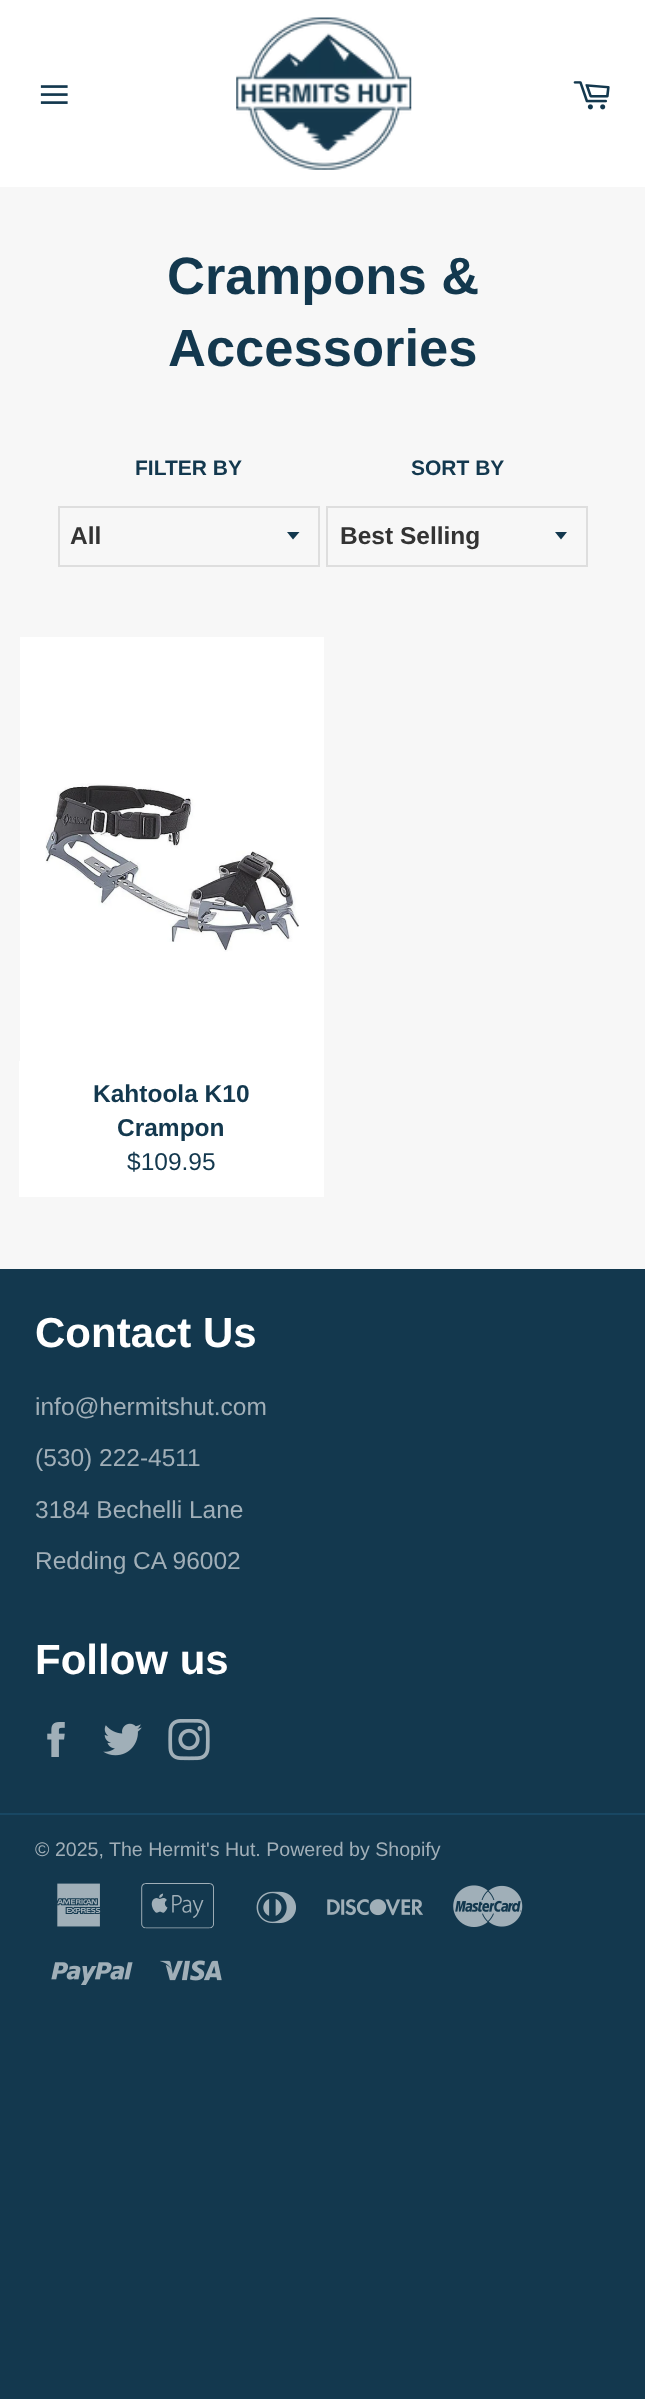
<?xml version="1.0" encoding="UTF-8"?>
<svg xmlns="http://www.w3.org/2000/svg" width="645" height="2399">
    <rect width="100%" height="100%" fill="#13384E"/>
    <rect x="0" y="187" width="645" height="1082" fill="#F7F7F7"/>
    <rect x="0" y="0" width="645" height="187" fill="#FFFFFF"/>
    <image x="40" y="85" width="28" height="19" href="img_01.png"/>
    <image x="236" y="17" width="176" height="153" href="img_02.png"/>
    <image x="573" y="81" width="37" height="29" href="img_03.png"/>
    <text x="167" y="294" font-family="Liberation Sans" font-size="52.5" font-weight="700" fill="#13384E">Crampons &amp;</text>
    <text x="168" y="366" font-family="Liberation Sans" font-size="52.5" font-weight="700" fill="#13384E">Accessories</text>
    <text x="135" y="475" font-family="Liberation Sans" font-size="21" font-weight="700" fill="#13384E">FILTER BY</text>
    <path d="M 287 532 L 293 539.5 L 299.5 532 Z" fill="#13384E"/>
    <rect x="59" y="507" width="260" height="59" fill="none" stroke="#DEDEDE" stroke-width="2"/>
    <text x="70" y="544" font-family="Liberation Sans" font-size="24.5" font-weight="700" fill="#333333">All</text>
    <text x="411" y="475" font-family="Liberation Sans" font-size="21" font-weight="700" fill="#13384E">SORT BY</text>
    <path d="M 555 532 L 561 539.5 L 567 532 Z" fill="#13384E"/>
    <rect x="327" y="507" width="260" height="59" fill="none" stroke="#DEDEDE" stroke-width="2"/>
    <text x="340" y="544" font-family="Liberation Sans" font-size="24.5" font-weight="700" fill="#333333">Best Selling</text>
    <rect x="20" y="637" width="304" height="424" fill="#FFFFFF"/>
    <image x="45" y="783" width="254" height="169" href="img_04.png"/>
    <rect x="19" y="1061" width="305" height="136" fill="#FFFFFF"/>
    <text x="93" y="1102" font-family="Liberation Sans" font-size="24.5" font-weight="700" fill="#13384E">Kahtoola K10</text>
    <text x="117" y="1136" font-family="Liberation Sans" font-size="24.5" font-weight="700" fill="#13384E">Crampon</text>
    <text x="127" y="1170" font-family="Liberation Sans" font-size="24.5" fill="#13384E">$109.95</text>
    <text x="35" y="1347" font-family="Liberation Sans" font-size="42" font-weight="700" fill="#FFFFFF">Contact Us</text>
    <text x="35" y="1415" font-family="Liberation Sans" font-size="24.5" fill="#A1AFB8">info@hermitshut.com</text>
    <text x="35" y="1466" font-family="Liberation Sans" font-size="24.5" fill="#A1AFB8">(530) 222-4511</text>
    <text x="35" y="1518" font-family="Liberation Sans" font-size="24.5" fill="#A1AFB8">3184 Bechelli Lane</text>
    <text x="35" y="1569" font-family="Liberation Sans" font-size="24.5" fill="#A1AFB8">Redding CA 96002</text>
    <text x="35" y="1674" font-family="Liberation Sans" font-size="42" font-weight="700" fill="#FFFFFF">Follow us</text>
    <image x="47" y="1722" width="18" height="35" href="img_05.png"/>
    <image x="103" y="1723" width="39" height="33" href="img_06.png"/>
    <image x="168" y="1719" width="42" height="42" href="img_07.png"/>
    <rect x="0" y="1813" width="645" height="2" fill="#184763"/>
    <text x="35" y="1856" font-family="Liberation Sans" font-size="19.6" fill="#A1AFB8">© 2025,</text>
    <text x="109" y="1856" font-family="Liberation Sans" font-size="19.6" fill="#A1AFB8">The Hermit's Hut. Powered by Shopify</text>
    <image x="57" y="1883" width="44" height="44" href="img_08.png"/>
    <image x="141" y="1883" width="73" height="46" href="img_09.png"/>
    <image x="256" y="1891" width="40" height="33" href="img_10.png"/>
    <image x="327" y="1899" width="96" height="17" href="img_11.png"/>
    <image x="453" y="1885" width="70" height="42" href="img_12.png"/>
    <image x="51" y="1962" width="82" height="23" href="img_13.png"/>
    <image x="160" y="1960" width="62" height="21" href="img_14.png"/>
</svg>
